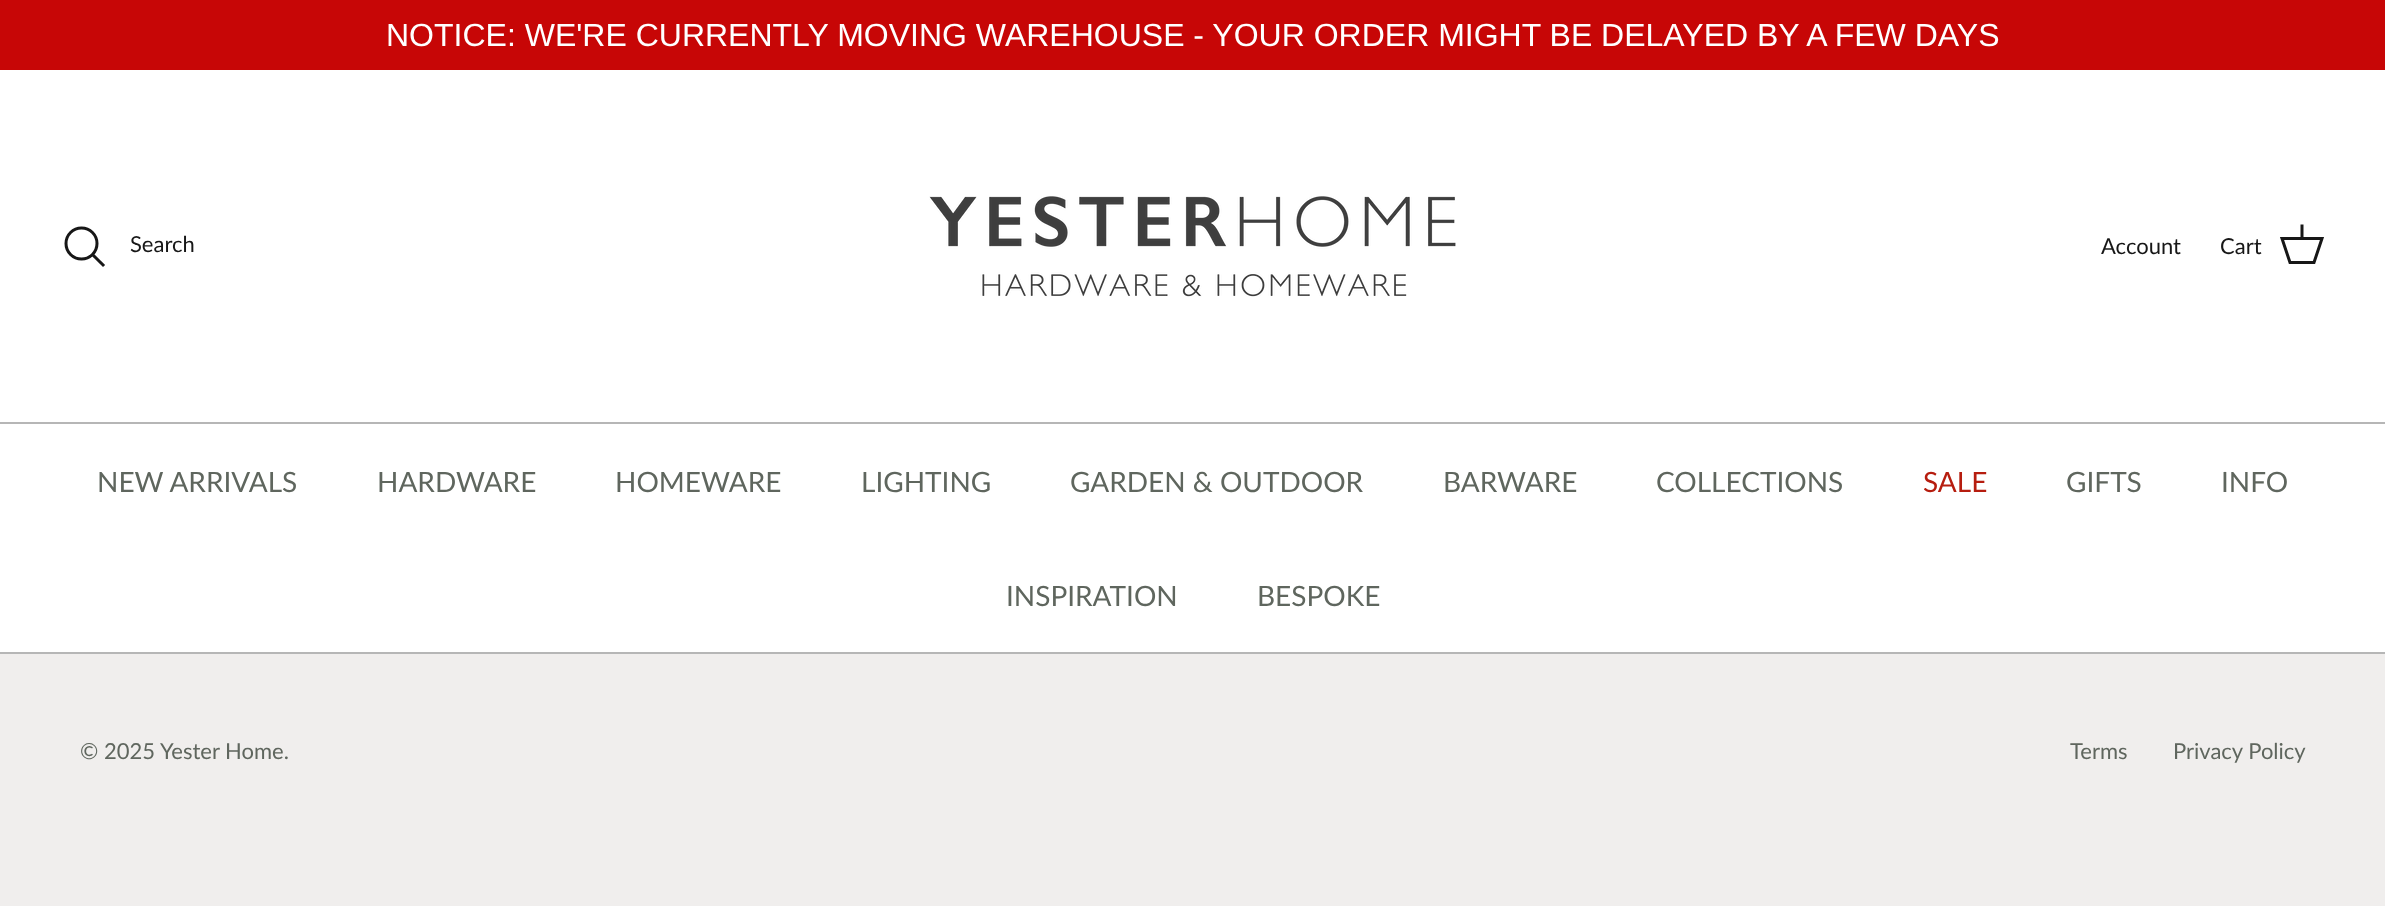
<?xml version="1.0" encoding="UTF-8"?>
<svg xmlns="http://www.w3.org/2000/svg" width="2385" height="906">
    <rect width="100%" height="100%" fill="#F0EEED"/>
    <rect x="0" y="0" width="2385" height="70" fill="#C70606"/>
    <text x="386" y="46" font-family="Liberation Sans" font-size="32" fill="#FFFFFF">NOTICE: WE'RE CURRENTLY MOVING WAREHOUSE - YOUR ORDER MIGHT BE DELAYED BY A FEW DAYS</text>
    <rect x="0" y="70" width="2385" height="352" fill="#FFFFFF"/>
    <rect x="0" y="422" width="2385" height="2" fill="#B6B6B6"/>
    <circle cx="81.5" cy="243.5" r="15.5" fill="none" stroke="#171717" stroke-width="3"/>
    <text x="130" y="252" font-family="Lato" font-size="22" fill="#171717">Search</text>
    <path d="M 94 256 L 103 265" fill="none" stroke="#171717" stroke-width="3" stroke-linecap="square"/>
    <image x="929" y="196" width="527" height="101" href="img_01.png"/>
    <text x="2101" y="254" font-family="Lato" font-size="22" fill="#171717">Account</text>
    <text x="2220" y="254" font-family="Lato" font-size="22" fill="#171717">Cart</text>
    <path d="M 2282 238.5 H 2322 L 2314 262.5 H 2290 Z" fill="none" stroke="#171717" stroke-width="3"/>
    <path d="M 2302 238 V 226" fill="none" stroke="#171717" stroke-width="3" stroke-linecap="square"/>
    <rect x="0" y="652" width="2385" height="2" fill="#B6B6B6"/>
    <rect x="0" y="424" width="2385" height="228" fill="#FFFFFF"/>
    <text x="97" y="492" font-family="Lato" font-size="28" fill="#5F665E">NEW ARRIVALS</text>
    <text x="377" y="492" font-family="Lato" font-size="28" fill="#5F665E">HARDWARE</text>
    <text x="615" y="492" font-family="Lato" font-size="28" fill="#5F665E">HOMEWARE</text>
    <text x="861" y="492" font-family="Lato" font-size="28" fill="#5F665E">LIGHTING</text>
    <text x="1070" y="492" font-family="Lato" font-size="28" fill="#5F665E">GARDEN &amp; OUTDOOR</text>
    <text x="1443" y="492" font-family="Lato" font-size="28" fill="#5F665E">BARWARE</text>
    <text x="1656" y="492" font-family="Lato" font-size="28" fill="#5F665E">COLLECTIONS</text>
    <text x="1923" y="492" font-family="Lato" font-size="28" fill="#B61D0F">SALE</text>
    <text x="2066" y="492" font-family="Lato" font-size="28" fill="#5F665E">GIFTS</text>
    <text x="2221" y="492" font-family="Lato" font-size="28" fill="#5F665E">INFO</text>
    <text x="1006" y="606" font-family="Lato" font-size="28" fill="#5F665E">INSPIRATION</text>
    <text x="1257" y="606" font-family="Lato" font-size="28" fill="#5F665E">BESPOKE</text>
    <text x="80" y="759" font-family="Lato" font-size="22" fill="#5F665E">© 2025</text>
    <text x="160" y="759" font-family="Lato" font-size="22" fill="#5F665E">Yester Home.</text>
    <text x="2070" y="759" font-family="Lato" font-size="22" fill="#5F665E">Terms</text>
    <text x="2173" y="759" font-family="Lato" font-size="22" fill="#5F665E">Privacy Policy</text>
</svg>
